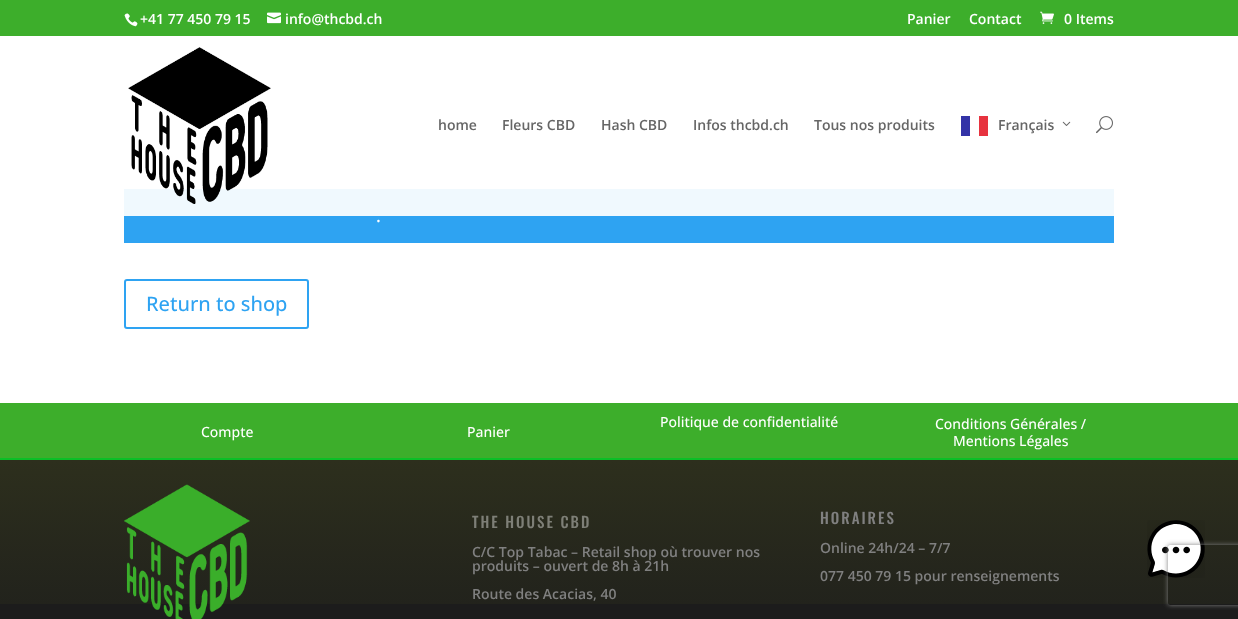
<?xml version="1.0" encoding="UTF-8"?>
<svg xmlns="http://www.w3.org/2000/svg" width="1238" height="619">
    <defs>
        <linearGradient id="g1" gradientUnits="userSpaceOnUse" x1="619" y1="460" x2="619" y2="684"><stop offset="0" stop-color="#2D2F1D"/><stop offset="1" stop-color="#1C1C1C"/></linearGradient>
        <clipPath id="clip1"><path d="M 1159 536 H 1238 V 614 H 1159 Z M 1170 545 H 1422 C 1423 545 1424 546 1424 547 V 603 C 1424 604 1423 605 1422 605 H 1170 C 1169 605 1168 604 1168 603 V 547 C 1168 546 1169 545 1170 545 Z" clip-rule="evenodd"/></clipPath>
        <filter id="blur1" x="-50%" y="-200%" width="200%" height="500%"><feGaussianBlur stdDeviation="2.5"/></filter>
    </defs>
    <rect width="100%" height="100%" fill="#FFFFFF"/>
    <rect x="0" y="0" width="1238" height="36" fill="#3DAE2B"/>
    <image x="124" y="13" width="14" height="14" href="img_01.png"/>
    <text x="140" y="24" font-family="Open Sans" font-size="14" font-weight="600" fill="#FFFFFF">+41 77 450 79 15</text>
    <image x="267" y="12" width="14" height="12" href="img_02.png"/>
    <text x="285" y="24" font-family="Open Sans" font-size="14" font-weight="600" fill="#FFFFFF">info@thcbd.ch</text>
    <text x="907" y="24" font-family="Open Sans" font-size="14" font-weight="600" fill="#FFFFFF">Panier</text>
    <text x="969" y="24" font-family="Open Sans" font-size="14" font-weight="600" fill="#FFFFFF">Contact</text>
    <image x="1040" y="11" width="14" height="13" href="img_03.png"/>
    <text x="1064" y="24" font-family="Open Sans" font-size="14" font-weight="600" fill="#FFFFFF">0 Items</text>
    <rect x="124" y="189" width="990" height="54" fill="#2EA3F2"/>
    <rect x="124" y="189" width="990" height="27" fill="#FFFFFF" fill-opacity="0.93"/>
    <image x="128" y="47" width="143" height="157" href="img_04.png"/>
    <text x="438" y="130" font-family="Open Sans" font-size="14" font-weight="600" fill="#666666">home</text>
    <text x="502" y="130" font-family="Open Sans" font-size="14" font-weight="600" fill="#666666">Fleurs CBD</text>
    <text x="601" y="130" font-family="Open Sans" font-size="14" font-weight="600" fill="#666666">Hash CBD</text>
    <text x="693" y="130" font-family="Open Sans" font-size="14" font-weight="600" fill="#666666">Infos thcbd.ch</text>
    <text x="814" y="130" font-family="Open Sans" font-size="14" font-weight="600" fill="#666666">Tous nos produits</text>
    <rect x="961" y="116" width="9" height="20" fill="#000091"/>
    <rect x="979" y="116" width="9" height="20" fill="#E1000F"/>
    <rect x="961" y="116" width="27" height="20" fill="#FFFFFF" fill-opacity="0.2"/>
    <text x="998" y="130" font-family="Open Sans" font-size="14" font-weight="600" fill="#666666">Français</text>
    <image x="1062" y="121" width="9" height="5" href="img_05.png"/>
    <image x="1096" y="116" width="17" height="18" href="img_06.png"/>
    <text x="376" y="222" font-family="Open Sans" font-size="18" font-weight="500" fill="#FFFFFF">.</text>
    <rect x="125" y="280" width="183" height="48" rx="2" fill="none" stroke="#2EA3F2" stroke-width="2"/>
    <text x="146" y="311" font-family="Open Sans" font-size="20" font-weight="500" fill="#2EA3F2">Return to shop</text>
    <rect x="0" y="403" width="1238" height="55" fill="#3DAE2B"/>
    <rect x="0" y="458" width="1238" height="2" fill="#0BBF26"/>
    <text x="201" y="437" font-family="Open Sans" font-size="14" font-weight="500" fill="#FFFFFF">Compte</text>
    <text x="467" y="437" font-family="Open Sans" font-size="14" font-weight="500" fill="#FFFFFF">Panier</text>
    <text x="660" y="427" font-family="Open Sans" font-size="14" font-weight="500" fill="#FFFFFF">Politique de confidentialité</text>
    <text x="935" y="429" font-family="Open Sans" font-size="14" font-weight="500" fill="#FFFFFF">Conditions Générales /</text>
    <text x="953" y="446" font-family="Open Sans" font-size="14" font-weight="500" fill="#FFFFFF">Mentions Légales</text>
    <rect x="0" y="460" width="1238" height="144" fill="url(#g1)"/>
    <rect x="0" y="604" width="1238" height="15" fill="#1C1C1C"/>
    <image x="124" y="484" width="126" height="135" href="img_07.png"/>
    <text x="472" y="528" font-family="Oswald" font-size="15" font-weight="500" letter-spacing="2" fill="#7E7F77">THE HOUSE CBD</text>
    <text font-family="Open Sans" font-size="14" font-weight="600" fill="#808080">
        <tspan x="472" y="557">C/C Top Tabac – Retail shop où trouver nos</tspan>
        <tspan x="472" y="571">produits – ouvert de 8h à 21h</tspan>
    </text>
    <text x="472" y="599" font-family="Open Sans" font-size="14" font-weight="600" fill="#808080">Route des Acacias, 40</text>
    <text x="820" y="524" font-family="Oswald" font-size="15" font-weight="500" letter-spacing="2" fill="#808080">HORAIRES</text>
    <text x="820" y="553" font-family="Open Sans" font-size="14" font-weight="600" fill="#808080">Online 24h/24 – 7/7</text>
    <text x="820" y="581" font-family="Open Sans" font-size="14" font-weight="600" fill="#808080">077 450 79 15 pour renseignements</text>
    <image x="1147" y="520" width="58" height="58" href="img_08.png"/>
    <g clip-path="url(#clip1)">
        <rect x="1168" y="545" width="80" height="60" rx="2" fill="#808080" filter="url(#blur1)"/>
    </g>
</svg>
